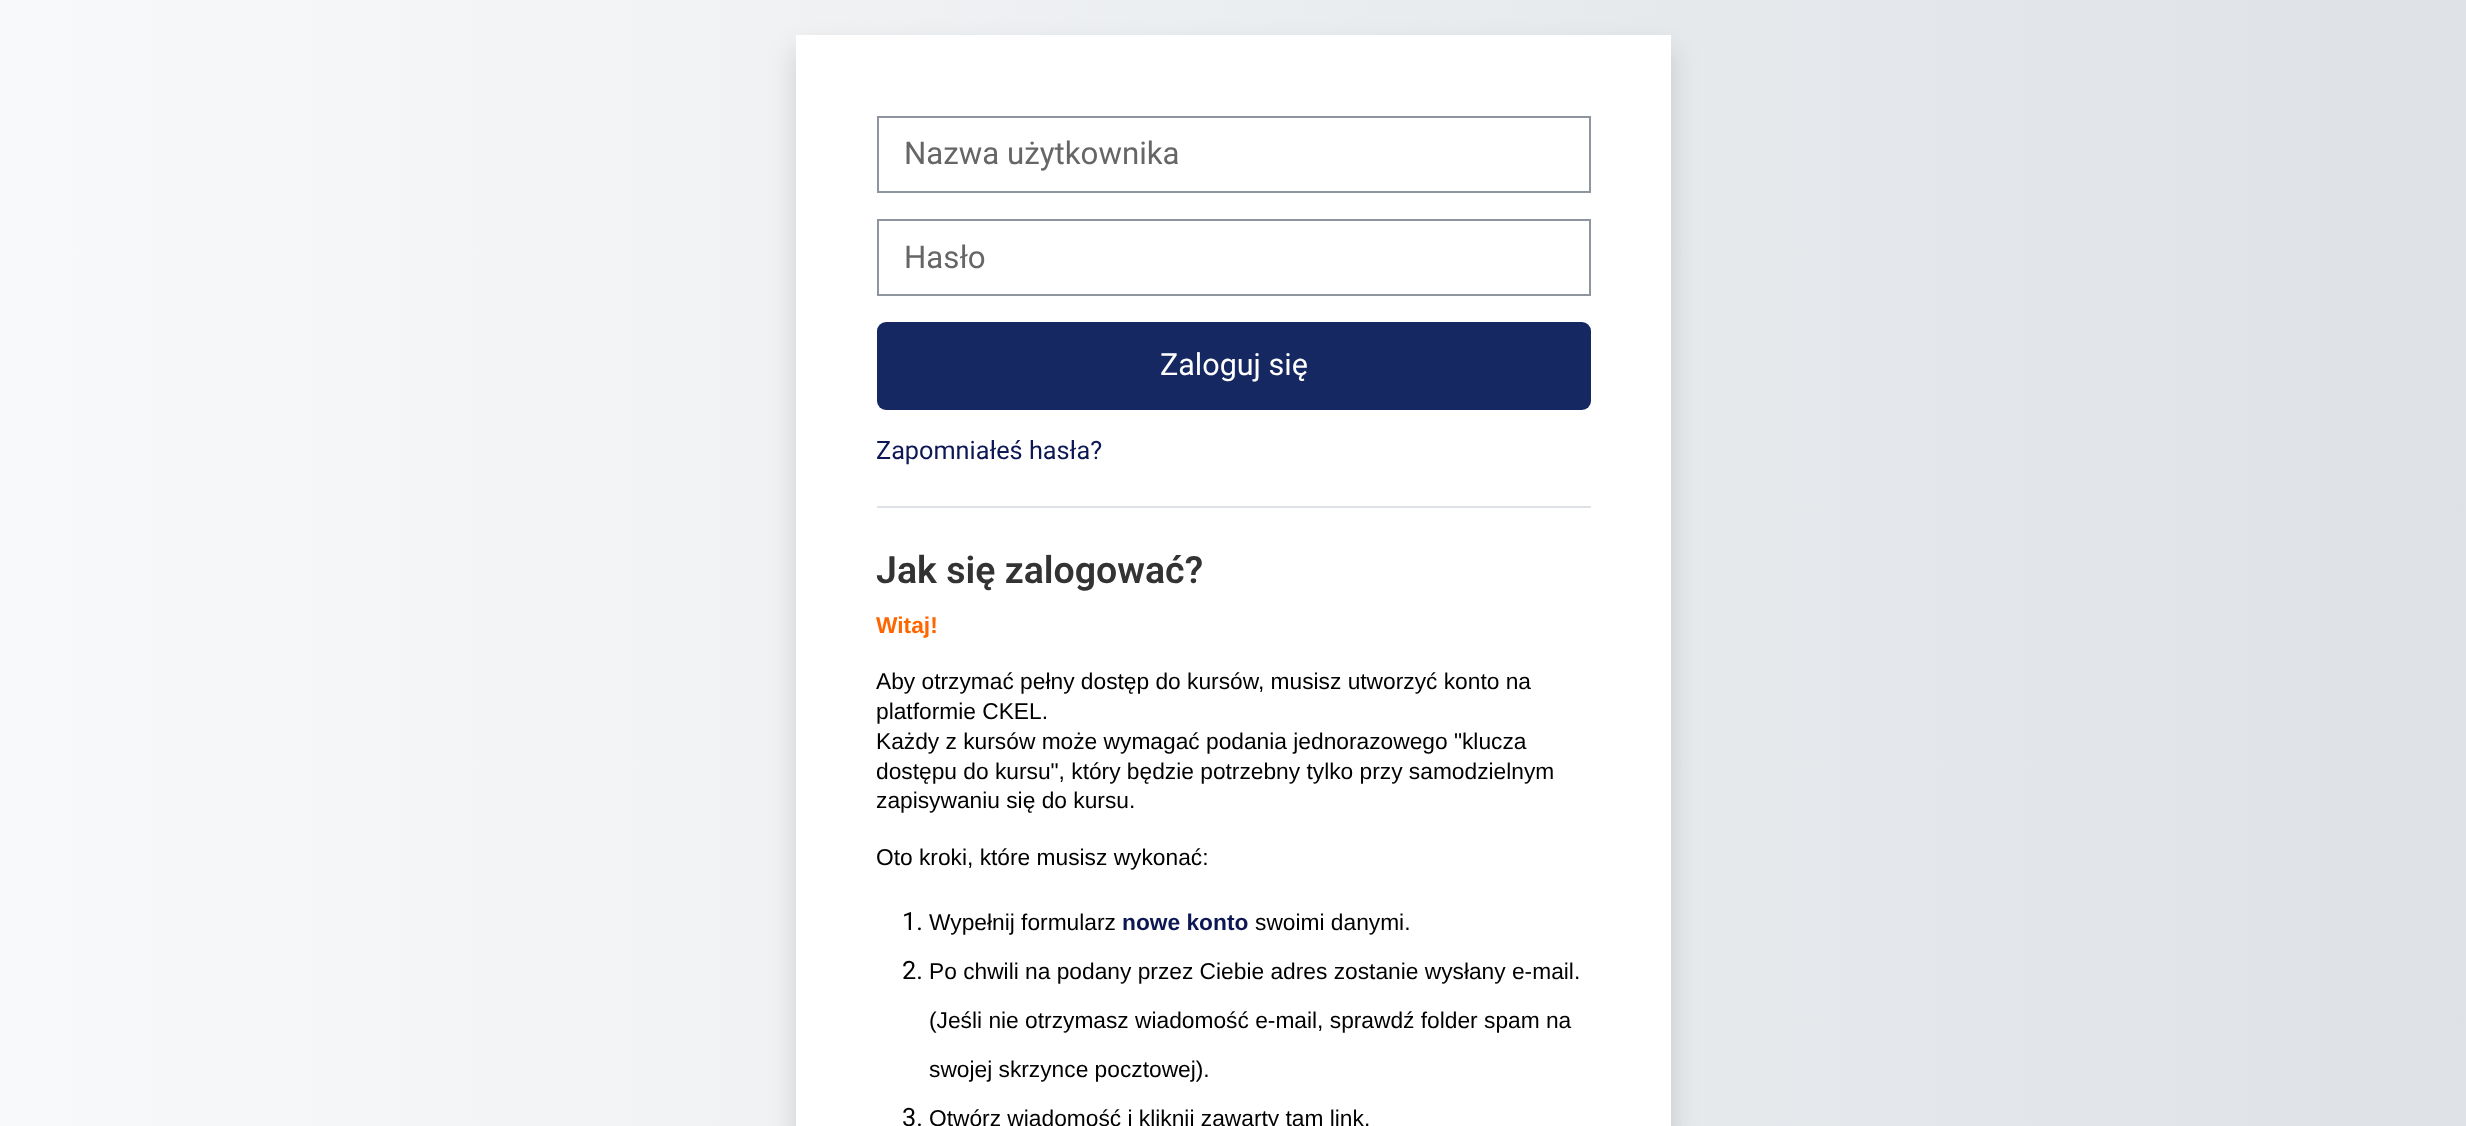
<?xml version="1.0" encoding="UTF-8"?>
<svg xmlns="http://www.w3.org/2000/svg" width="2466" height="1126">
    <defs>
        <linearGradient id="g1" gradientUnits="userSpaceOnUse" x1="0" y1="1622" x2="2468" y2="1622"><stop offset="0" stop-color="#F8F9FA"/><stop offset="1" stop-color="#DEE2E6"/></linearGradient>
        <filter id="blur1" x="-50%" y="-200%" width="200%" height="500%"><feGaussianBlur stdDeviation="13.5"/></filter>
    </defs>
    <rect width="100%" height="100%" fill="#FFFFFF"/>
    <rect x="0" y="0" width="2466" height="1126" fill="url(#g1)"/>
    <rect x="796" y="49" width="875" height="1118" fill="#000000" fill-opacity="0.15" filter="url(#blur1)"/>
    <rect x="796" y="35" width="875" height="1091" fill="#FFFFFF"/>
    <rect x="878" y="117" width="712" height="75" fill="none" stroke="#8F959E" stroke-width="2"/>
    <text x="904" y="164" font-family="Roboto" font-size="31.25" fill="#666666">Nazwa użytkownika</text>
    <rect x="878" y="220" width="712" height="75" fill="none" stroke="#8F959E" stroke-width="2"/>
    <text x="904" y="268" font-family="Roboto" font-size="31.25" fill="#666666">Hasło</text>
    <rect x="877" y="322" width="714" height="88" rx="9" fill="#152861"/>
    <text x="1160" y="375" font-family="Roboto" font-size="30.5" fill="#FFFFFF">Zaloguj się</text>
    <text x="876" y="459" font-family="Roboto" font-size="25.25" fill="#0C1754">Zapomniałeś hasła?</text>
    <rect x="877" y="506" width="714" height="2" fill="#DEE2E6"/>
    <text x="876" y="583" font-family="Roboto" font-size="37.5" font-weight="600" fill="#333333">Jak się zalogować?</text>
    <text x="876" y="633" font-family="Liberation Sans" font-size="22.75" font-weight="700" fill="#FF6600">Witaj!</text>
    <text font-family="Liberation Sans" font-size="22.75" fill="#000000">
        <tspan x="876" y="689">Aby otrzymać pełny dostęp do kursów, musisz utworzyć konto na</tspan>
        <tspan x="876" y="719">platformie CKEL.</tspan>
        <tspan x="876" y="749">Każdy z kursów może wymagać podania jednorazowego "klucza</tspan>
        <tspan x="876" y="779">dostępu do kursu", który będzie potrzebny tylko przy samodzielnym</tspan>
        <tspan x="876" y="808">zapisywaniu się do kursu.</tspan>
    </text>
    <text x="876" y="865" font-family="Liberation Sans" font-size="22.75" fill="#000000">Oto kroki, które musisz wykonać:</text>
    <text x="902" y="930" font-family="Roboto" font-size="25.25" fill="#000000">1.</text>
    <text x="929" y="930" font-family="Liberation Sans" font-size="22.75" fill="#000000">Wypełnij formularz</text>
    <text x="1122" y="930" font-family="Liberation Sans" font-size="22.75" font-weight="700" fill="#0C1754">nowe konto</text>
    <text x="1255" y="930" font-family="Liberation Sans" font-size="22.75" fill="#000000">swoimi danymi.</text>
    <text x="902" y="979" font-family="Roboto" font-size="25.25" fill="#000000">2.</text>
    <text x="929" y="979" font-family="Liberation Sans" font-size="22.75" fill="#000000">Po chwili na podany przez Ciebie adres zostanie wysłany e-mail.</text>
    <text x="929" y="1028" font-family="Liberation Sans" font-size="22.75" fill="#000000">(Jeśli nie otrzymasz wiadomość e-mail, sprawdź folder spam na</text>
    <text x="929" y="1077" font-family="Liberation Sans" font-size="22.75" fill="#000000">swojej skrzynce pocztowej).</text>
    <text x="902" y="1126" font-family="Roboto" font-size="25.25" fill="#000000">3.</text>
    <text x="929" y="1126" font-family="Liberation Sans" font-size="22.75" fill="#000000">Otwórz wiadomość i kliknij zawarty tam link.</text>
</svg>
